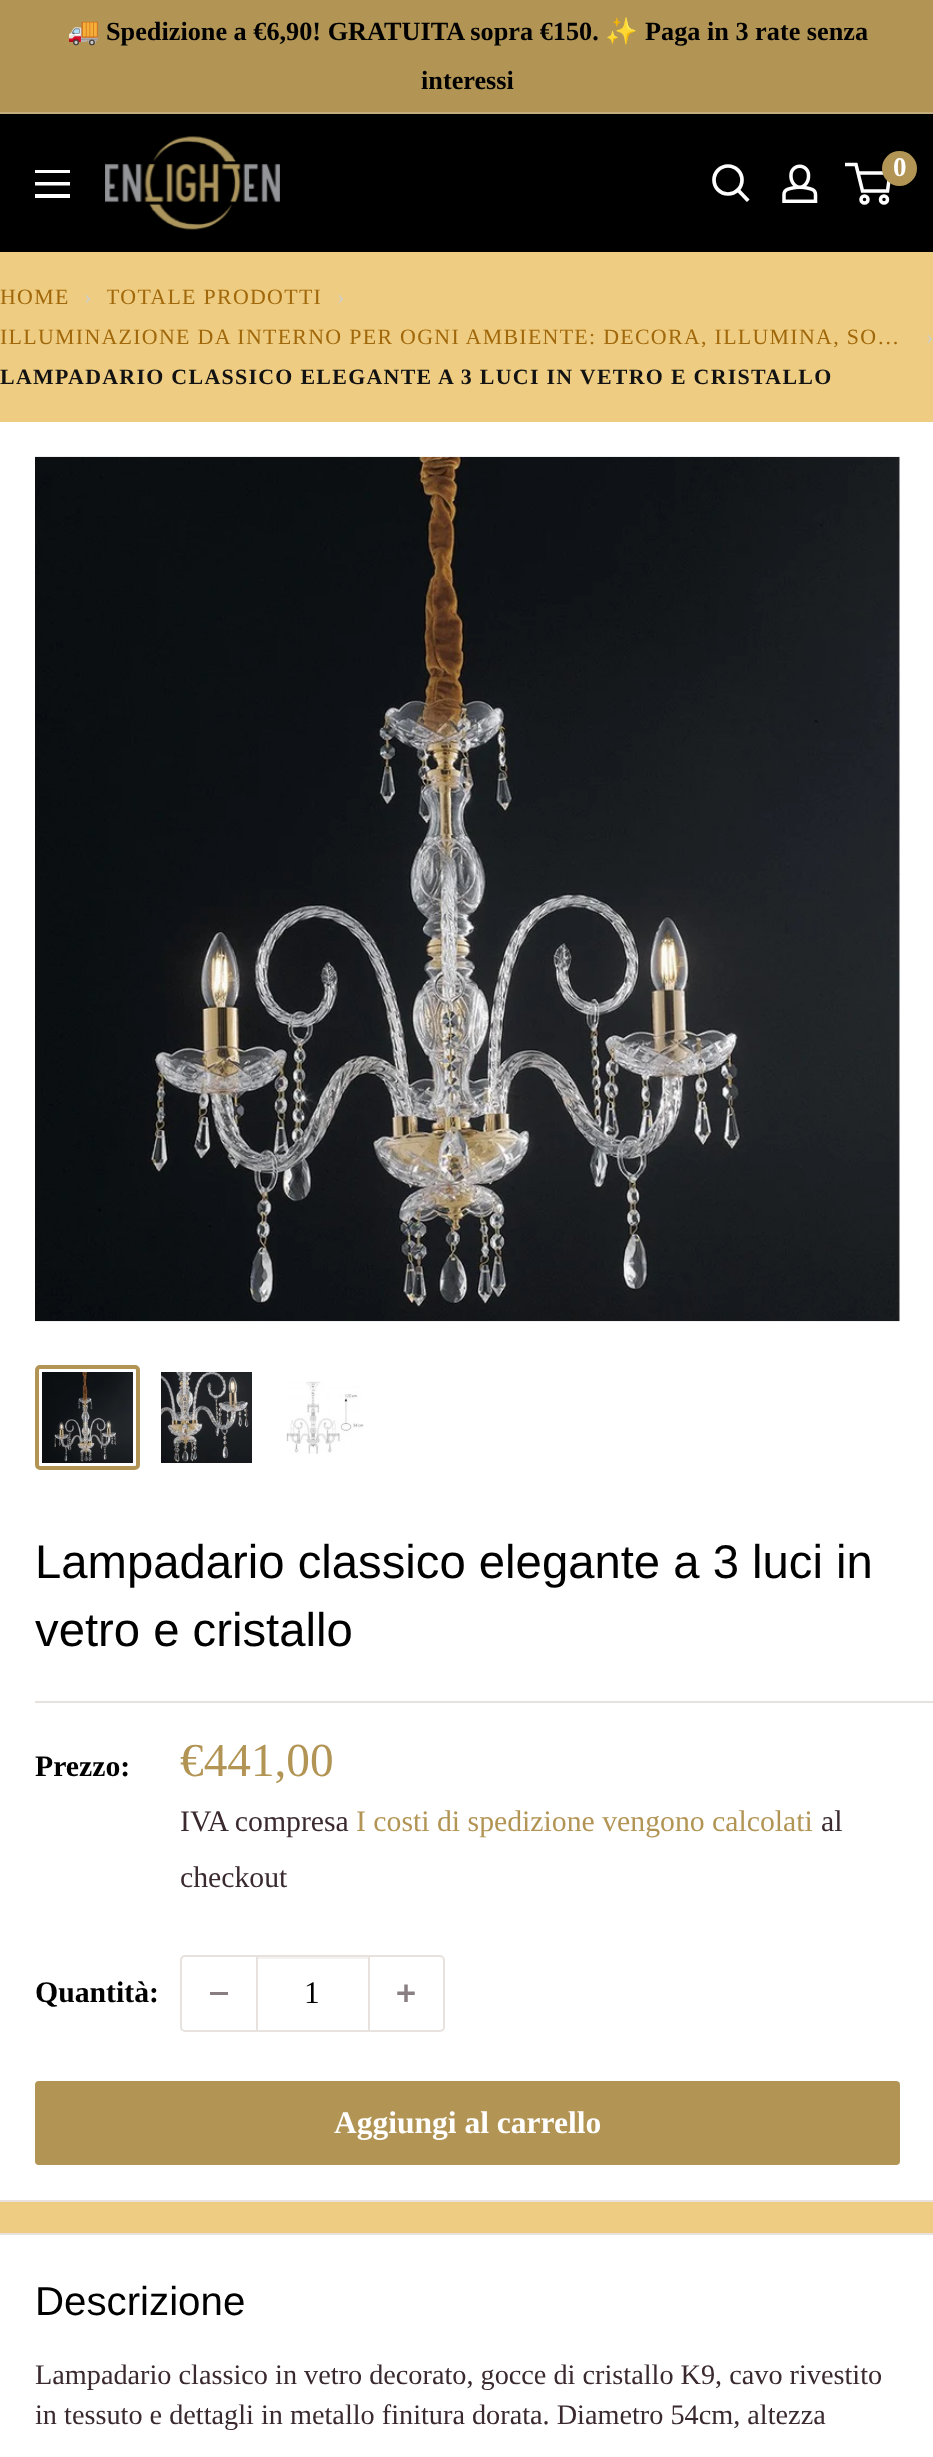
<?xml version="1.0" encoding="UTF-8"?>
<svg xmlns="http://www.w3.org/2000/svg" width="933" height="2457">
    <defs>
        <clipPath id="clip1"><rect x="107" y="284" width="215" height="26"/></clipPath>
    </defs>
    <rect width="100%" height="100%" fill="#EECC81"/>
    <rect x="0" y="0" width="933" height="112" fill="#B29555"/>
    <rect x="0" y="112" width="933" height="2" fill="#C3AC7E"/>
    <text x="67" y="40" font-family="Noto Color Emoji" font-size="26.25" font-weight="700" fill="#000000">🚚</text>
    <text x="106" y="40" font-family="Liberation Serif" font-size="26.25" font-weight="700" fill="#000000">Spedizione a €6,90! GRATUITA sopra €150.</text>
    <text x="605" y="40" font-family="Noto Color Emoji" font-size="26.25" font-weight="700" fill="#000000">✨</text>
    <text x="645" y="40" font-family="Liberation Serif" font-size="26.25" font-weight="700" fill="#000000">Paga in 3 rate senza</text>
    <text x="421" y="89" font-family="Liberation Serif" font-size="26.25" font-weight="700" fill="#000000">interessi</text>
    <rect x="0" y="114" width="933" height="138" fill="#000000"/>
    <image x="105" y="136" width="175" height="94" href="img_01.png"/>
    <path d="M 747 199.5 L 738 190" fill="none" stroke="#FFFFFF" stroke-width="3.7" stroke-linecap="square"/>
    <circle cx="728" cy="180" r="14" fill="none" stroke="#FFFFFF" stroke-width="3.7"/>
    <image x="782" y="164" width="36" height="39" href="img_02.png"/>
    <circle cx="864.5" cy="199.5" r="3.5" fill="none" stroke="#FFFFFF" stroke-width="3.5"/>
    <circle cx="884" cy="199.5" r="3.5" fill="none" stroke="#FFFFFF" stroke-width="3.5"/>
    <path d="M 858 173 H 890 L 887.5 191 H 862.5 L 856 164.5 H 845" fill="none" stroke="#FFFFFF" stroke-width="3.5"/>
    <circle cx="899.5" cy="168.5" r="17.5" fill="#B29555"/>
    <text x="893" y="176" font-family="Liberation Serif" font-size="27" font-weight="700" fill="#FFFFFF">0</text>
    <path d="M 35 194 H 70 V 198 H 35 Z M 35 170 H 70 V 173 H 35 Z M 35 182 H 70 V 185.5 H 35 Z" fill="#FFFFFF" fill-rule="evenodd"/>
    <text x="0" y="304" font-family="Liberation Serif" font-size="21.9" letter-spacing="1.3" fill="#A0680B">HOME</text>
    <text x="84" y="304" font-family="Liberation Serif" font-size="21.9" letter-spacing="1.3" fill="#CFCFCF">›</text>
    <g clip-path="url(#clip1)">
        <text x="106" y="304" font-family="Liberation Serif" font-size="21.9" letter-spacing="1.3" fill="#A0680B">TOTALE PRODOTTI</text>
    </g>
    <text x="337" y="304" font-family="Liberation Serif" font-size="21.9" letter-spacing="1.3" fill="#CFCFCF">›</text>
    <text x="0" y="344" font-family="Liberation Serif" font-size="21.9" letter-spacing="1.3" fill="#A0680B">ILLUMINAZIONE DA INTERNO PER OGNI AMBIENTE: DECORA, ILLUMINA, SO…</text>
    <text x="926" y="344" font-family="Liberation Serif" font-size="21.9" letter-spacing="1.3" fill="#CFCFCF">›</text>
    <text x="0" y="384" font-family="Liberation Serif" font-size="21.9" font-weight="700" letter-spacing="1.3" fill="#121212">LAMPADARIO CLASSICO ELEGANTE A 3 LUCI IN VETRO E CRISTALLO</text>
    <rect x="0" y="422" width="933" height="1104" fill="#FFFFFF"/>
    <image x="35" y="456" width="865" height="866" href="img_03.png"/>
    <rect x="37" y="1367" width="101" height="101" rx="3" fill="none" stroke="#B29555" stroke-width="4"/>
    <image x="42" y="1372" width="91" height="91" href="img_04.png"/>
    <image x="161" y="1372" width="91" height="91" href="img_05.png"/>
    <image x="286" y="1381" width="78" height="73" href="img_06.png"/>
    <path d="M 0 1526 V 1528 H 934 V 2200 H 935 V 1526 Z" fill="#FFFFFF"/>
    <rect x="0" y="1528" width="933" height="672" fill="#FFFFFF"/>
    <rect x="0" y="2200" width="933" height="2" fill="#E7E2DE"/>
    <text font-family="Liberation Sans" font-size="47.25" fill="#000000">
        <tspan x="35" y="1578">Lampadario classico elegante a 3 luci in</tspan>
        <tspan x="35" y="1646">vetro e cristallo</tspan>
    </text>
    <rect x="35" y="1701" width="898" height="2" fill="#E7E2DE"/>
    <text x="35" y="1776" font-family="Liberation Serif" font-size="29.75" font-weight="700" fill="#000000">Prezzo:</text>
    <text x="180" y="1776" font-family="Liberation Serif" font-size="47.25" fill="#B29555">€441,00</text>
    <text x="180" y="1831" font-family="Liberation Serif" font-size="29.75" fill="#3A2A2F">IVA compresa</text>
    <text x="356" y="1831" font-family="Liberation Serif" font-size="29.75" fill="#B29555">I costi di spedizione vengono calcolati</text>
    <text x="821" y="1831" font-family="Liberation Serif" font-size="29.75" fill="#3A2A2F">al</text>
    <text x="180" y="1887" font-family="Liberation Serif" font-size="29.75" fill="#3A2A2F">checkout</text>
    <text x="35" y="2002" font-family="Liberation Serif" font-size="29.75" font-weight="700" fill="#000000">Quantità:</text>
    <rect x="181" y="1956" width="263" height="75" rx="4" fill="none" stroke="#E7E2DE" stroke-width="2"/>
    <rect x="210" y="1992" width="18" height="3" fill="#897F82"/>
    <rect x="257" y="1957" width="111" height="2" fill="#F5F3F2"/>
    <rect x="368" y="1957" width="2" height="73" fill="#E7E2DE"/>
    <rect x="256" y="1957" width="2" height="73" fill="#E7E2DE"/>
    <text x="304" y="2003" font-family="Liberation Serif" font-size="31.5" fill="#000000">1</text>
    <image x="397" y="1984" width="18" height="18" href="img_07.png"/>
    <rect x="35" y="2081" width="865" height="84" rx="4" fill="#B29555"/>
    <text x="334" y="2133" font-family="Liberation Serif" font-size="31.5" font-weight="700" fill="#FFFFFF">Aggiungi al carrello</text>
    <rect x="0" y="2235" width="933" height="222" fill="#FFFFFF"/>
    <rect x="0" y="2233" width="933" height="2" fill="#E7E2DE"/>
    <text x="35" y="2315" font-family="Liberation Sans" font-size="40.25" fill="#000000">Descrizione</text>
    <text font-family="Liberation Serif" font-size="28.25" fill="#3A2A2F">
        <tspan x="35" y="2384">Lampadario classico in vetro decorato, gocce di cristallo K9, cavo rivestito</tspan>
        <tspan x="35" y="2424">in tessuto e dettagli in metallo finitura dorata. Diametro 54cm, altezza</tspan>
    </text>
</svg>
